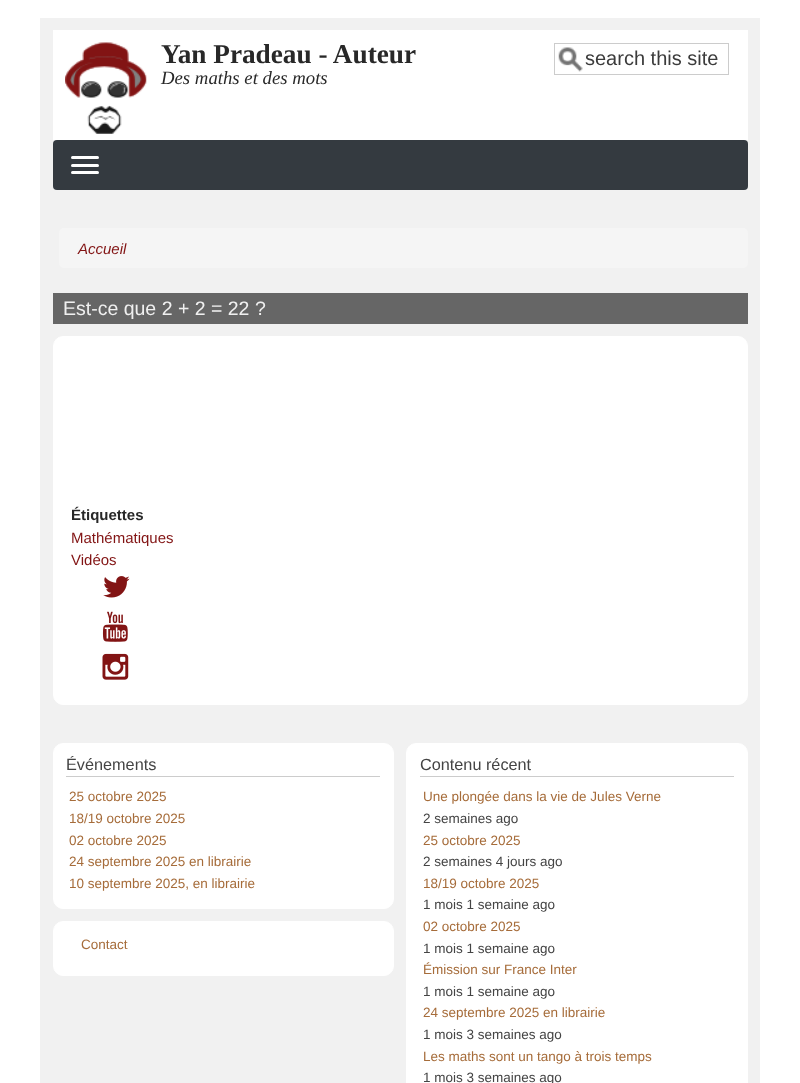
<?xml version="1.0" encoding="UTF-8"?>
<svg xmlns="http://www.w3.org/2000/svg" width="800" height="1083">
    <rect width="100%" height="100%" fill="#FFFFFF"/>
    <rect x="40" y="18" width="720" height="1065" fill="#F1F1F1"/>
    <rect x="53" y="30" width="695" height="110" fill="#FFFFFF"/>
    <image x="65" y="42" width="82" height="92" href="img_01.png"/>
    <text x="161" y="63" font-family="Liberation Serif" font-size="27.25" font-weight="700" fill="#282828">Yan Pradeau - Auteur</text>
    <text x="161" y="84" font-family="Liberation Serif" font-size="18.75" font-style="italic" fill="#282828">Des maths et des mots</text>
    <image x="558" y="47" width="25" height="25" href="img_02.png"/>
    <rect x="554.5" y="43.5" width="174" height="31" fill="none" stroke="#CCCCCC"/>
    <text x="585" y="65" font-family="Liberation Sans" font-size="20" fill="#3B3B3B">search this site</text>
    <rect x="53" y="140" width="695" height="50" rx="4" fill="#343A40"/>
    <rect x="71" y="156" width="28" height="3" rx="1.5" fill="#FFFFFF"/>
    <rect x="71" y="164" width="28" height="3" rx="1.5" fill="#FFFFFF"/>
    <rect x="71" y="171" width="28" height="3" rx="1.5" fill="#FFFFFF"/>
    <rect x="59" y="228" width="689" height="40" rx="5" fill="#F5F5F5"/>
    <text x="78" y="254" font-family="Liberation Sans" font-size="15" font-style="italic" fill="#821414">Accueil</text>
    <rect x="53" y="293" width="695" height="31" fill="#666666"/>
    <text x="63" y="315" font-family="Liberation Sans" font-size="19.5" fill="#F0F0F0">Est-ce que 2 + 2 = 22 ?</text>
    <rect x="53.5" y="336.5" width="694" height="368" rx="9.5" fill="#FFFFFF" stroke="#FFFFFF"/>
    <text x="71" y="520" font-family="Liberation Sans" font-size="15" font-weight="700" fill="#282828">Étiquettes</text>
    <text font-family="Liberation Sans" font-size="15" fill="#821414">
        <tspan x="71" y="543">Mathématiques</tspan>
        <tspan x="71" y="565">Vidéos</tspan>
    </text>
    <image x="103" y="576" width="27" height="22" href="img_03.png"/>
    <image x="102" y="611" width="26" height="31" href="img_04.png"/>
    <image x="102" y="653" width="27" height="27" href="img_05.png"/>
    <rect x="53.5" y="743.5" width="340" height="165" rx="9.5" fill="#FFFFFF" stroke="#FFFFFF"/>
    <rect x="66" y="776" width="314" height="1" fill="#CCCCCC"/>
    <text x="66" y="770" font-family="Liberation Sans" font-size="16.25" fill="#444444">Événements</text>
    <text font-family="Liberation Sans" font-size="13.5" fill="#A66C3A">
        <tspan x="69" y="801">25 octobre 2025</tspan>
        <tspan x="69" y="823">18/19 octobre 2025</tspan>
        <tspan x="69" y="845">02 octobre 2025</tspan>
        <tspan x="69" y="866">24 septembre 2025 en librairie</tspan>
        <tspan x="69" y="888">10 septembre 2025, en librairie</tspan>
    </text>
    <rect x="53.5" y="921.5" width="340" height="54" rx="9.5" fill="#FFFFFF" stroke="#FFFFFF"/>
    <text x="81" y="949" font-family="Liberation Sans" font-size="13.5" fill="#A66C3A">Contact</text>
    <rect x="406.5" y="743.5" width="341" height="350" rx="9.5" fill="#FFFFFF" stroke="#FFFFFF"/>
    <rect x="420" y="776" width="314" height="1" fill="#CCCCCC"/>
    <text x="420" y="770" font-family="Liberation Sans" font-size="16.25" fill="#444444">Contenu récent</text>
    <text x="423" y="801" font-family="Liberation Sans" font-size="13.5" fill="#A66C3A">Une plongée dans la vie de Jules Verne</text>
    <text x="423" y="823" font-family="Liberation Sans" font-size="13.5" fill="#444444">2 semaines ago</text>
    <text x="423" y="845" font-family="Liberation Sans" font-size="13.5" fill="#A66C3A">25 octobre 2025</text>
    <text x="423" y="866" font-family="Liberation Sans" font-size="13.5" fill="#444444">2 semaines 4 jours ago</text>
    <text x="423" y="888" font-family="Liberation Sans" font-size="13.5" fill="#A66C3A">18/19 octobre 2025</text>
    <text x="423" y="909" font-family="Liberation Sans" font-size="13.5" fill="#444444">1 mois 1 semaine ago</text>
    <text x="423" y="931" font-family="Liberation Sans" font-size="13.5" fill="#A66C3A">02 octobre 2025</text>
    <text x="423" y="953" font-family="Liberation Sans" font-size="13.5" fill="#444444">1 mois 1 semaine ago</text>
    <text x="423" y="974" font-family="Liberation Sans" font-size="13.5" fill="#A66C3A">Émission sur France Inter</text>
    <text x="423" y="996" font-family="Liberation Sans" font-size="13.5" fill="#444444">1 mois 1 semaine ago</text>
    <text x="423" y="1017" font-family="Liberation Sans" font-size="13.5" fill="#A66C3A">24 septembre 2025 en librairie</text>
    <text x="423" y="1039" font-family="Liberation Sans" font-size="13.5" fill="#444444">1 mois 3 semaines ago</text>
    <text x="423" y="1061" font-family="Liberation Sans" font-size="13.5" fill="#A66C3A">Les maths sont un tango à trois temps</text>
    <text x="423" y="1082" font-family="Liberation Sans" font-size="13.5" fill="#444444">1 mois 3 semaines ago</text>
</svg>
